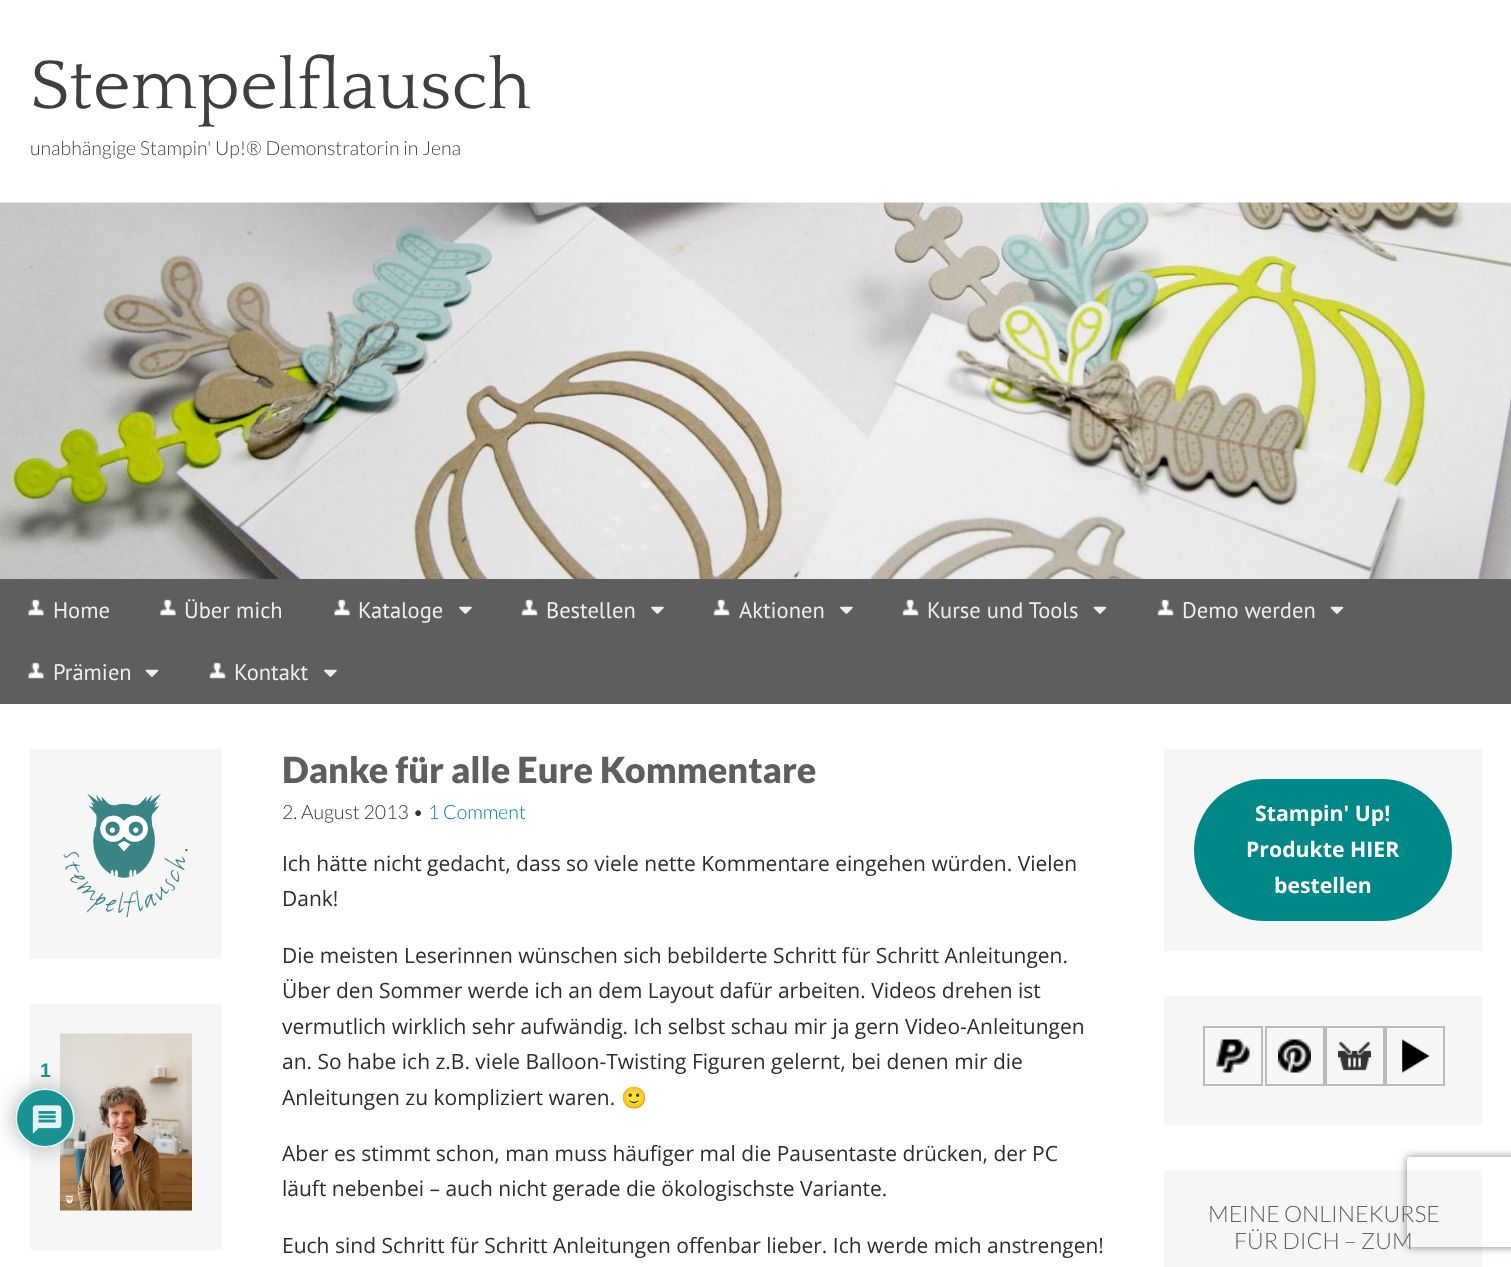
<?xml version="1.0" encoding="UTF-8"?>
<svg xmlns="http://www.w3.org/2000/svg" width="1511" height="1267">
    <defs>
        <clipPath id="clip1"><path d="M 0 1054 H 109 V 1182 H 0 Z M 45 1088 C 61.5 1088 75 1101.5 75 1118 C 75 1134.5 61.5 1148 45 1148 C 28.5 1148 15 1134.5 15 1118 C 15 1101.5 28.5 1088 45 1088 Z" clip-rule="evenodd"/></clipPath>
        <filter id="blur1" x="-50%" y="-200%" width="200%" height="500%"><feGaussianBlur stdDeviation="11"/></filter>
        <clipPath id="clip2"><path d="M 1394 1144 H 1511 V 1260 H 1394 Z M 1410 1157 H 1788 C 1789.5 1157 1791 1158.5 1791 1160 V 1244 C 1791 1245.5 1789.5 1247 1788 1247 H 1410 C 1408.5 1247 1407 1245.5 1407 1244 V 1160 C 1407 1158.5 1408.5 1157 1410 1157 Z" clip-rule="evenodd"/></clipPath>
        <filter id="blur2" x="-50%" y="-200%" width="200%" height="500%"><feGaussianBlur stdDeviation="4"/></filter>
    </defs>
    <rect width="100%" height="100%" fill="#FFFFFF"/>
    <text x="30" y="108" font-family="Quattrocento" font-size="72" fill="#3F3F3F">Stempelflausch</text>
    <text x="30" y="155" font-family="Lato" font-size="19.5" font-weight="300" fill="#3F3F3F">unabhängige Stampin' Up!® Demonstratorin in Jena</text>
    <image x="0" y="202" width="1511" height="377" href="img_01.png"/>
    <rect x="0" y="579" width="1511" height="125" fill="#5E5E5E"/>
    <image x="28" y="599" width="16" height="17" href="img_02.png"/>
    <text x="53" y="618" font-family="PT Sans" font-size="22.5" fill="#EEEEEE">Home</text>
    <image x="160" y="599" width="16" height="17" href="img_02.png"/>
    <text x="184" y="618" font-family="PT Sans" font-size="22.5" fill="#EEEEEE">Über mich</text>
    <image x="334" y="599" width="16" height="17" href="img_02.png"/>
    <text x="358" y="618" font-family="PT Sans" font-size="22.5" fill="#EEEEEE">Kataloge</text>
    <image x="459" y="606" width="13" height="8" href="img_03.png"/>
    <image x="521" y="599" width="17" height="17" href="img_04.png"/>
    <text x="546" y="618" font-family="PT Sans" font-size="22.5" fill="#EEEEEE">Bestellen</text>
    <image x="651" y="606" width="13" height="8" href="img_03.png"/>
    <image x="713" y="599" width="17" height="17" href="img_05.png"/>
    <text x="739" y="618" font-family="PT Sans" font-size="22.5" fill="#EEEEEE">Aktionen</text>
    <image x="840" y="606" width="13" height="8" href="img_03.png"/>
    <image x="902" y="599" width="17" height="17" href="img_04.png"/>
    <text x="927" y="618" font-family="PT Sans" font-size="22.5" fill="#EEEEEE">Kurse und Tools</text>
    <image x="1093" y="606" width="14" height="8" href="img_06.png"/>
    <image x="1157" y="599" width="17" height="17" href="img_05.png"/>
    <text x="1182" y="618" font-family="PT Sans" font-size="22.5" fill="#EEEEEE">Demo werden</text>
    <image x="1330" y="606" width="14" height="8" href="img_06.png"/>
    <image x="28" y="662" width="16" height="17" href="img_02.png"/>
    <text x="53" y="680" font-family="PT Sans" font-size="22.5" fill="#EEEEEE">Prämien</text>
    <image x="145" y="669" width="14" height="8" href="img_06.png"/>
    <image x="209" y="662" width="17" height="17" href="img_04.png"/>
    <text x="234" y="680" font-family="PT Sans" font-size="22.5" fill="#EEEEEE">Kontakt</text>
    <image x="324" y="669" width="13" height="8" href="img_03.png"/>
    <rect x="30" y="749" width="192" height="210" fill="#F6F6F6"/>
    <image x="63" y="793" width="125" height="125" href="img_07.png"/>
    <rect x="30" y="1004" width="192" height="246" fill="#F6F6F6"/>
    <image x="60" y="1033" width="132" height="178" href="img_08.png"/>
    <text x="282" y="783" font-family="Lato" font-size="36" font-weight="900" fill="#5E5E5E">Danke für alle Eure Kommentare</text>
    <text x="282" y="819" font-family="Lato" font-size="19.5" font-weight="300" fill="#333333">2. August 2013 •</text>
    <text x="428" y="819" font-family="Lato" font-size="19.5" font-weight="300" fill="#008787">1 Comment</text>
    <text font-family="Open Sans" font-size="21" fill="#2D2D2D">
        <tspan x="282" y="871">Ich hätte nicht gedacht, dass so viele nette Kommentare eingehen würden. Vielen</tspan>
        <tspan x="282" y="906">Dank!</tspan>
    </text>
    <text font-family="Open Sans" font-size="21" fill="#2D2D2D">
        <tspan x="282" y="963">Die meisten Leserinnen wünschen sich bebilderte Schritt für Schritt Anleitungen.</tspan>
        <tspan x="282" y="998">Über den Sommer werde ich an dem Layout dafür arbeiten. Videos drehen ist</tspan>
        <tspan x="282" y="1034">vermutlich wirklich sehr aufwändig. Ich selbst schau mir ja gern Video-Anleitungen</tspan>
        <tspan x="282" y="1069">an. So habe ich z.B. viele Balloon-Twisting Figuren gelernt, bei denen mir die</tspan>
        <tspan x="282" y="1105">Anleitungen zu kompliziert waren.</tspan>
    </text>
    <text x="621" y="1105" font-family="Noto Color Emoji" font-size="21" fill="#2D2D2D">🙂</text>
    <text font-family="Open Sans" font-size="21" fill="#2D2D2D">
        <tspan x="282" y="1161">Aber es stimmt schon, man muss häufiger mal die Pausentaste drücken, der PC</tspan>
        <tspan x="282" y="1196">läuft nebenbei – auch nicht gerade die ökologischste Variante.</tspan>
    </text>
    <text x="282" y="1253" font-family="Open Sans" font-size="21" fill="#2D2D2D">Euch sind Schritt für Schritt Anleitungen offenbar lieber. Ich werde mich anstrengen!</text>
    <rect x="1164" y="749" width="318" height="202" fill="#F6F6F6"/>
    <rect x="1194" y="779" width="258" height="142" rx="71" fill="#008787"/>
    <text x="1255" y="821" font-family="Open Sans" font-size="21.25" font-weight="700" fill="#FFFFFF">Stampin' Up!</text>
    <text x="1246" y="857" font-family="Open Sans" font-size="21.25" font-weight="700" fill="#FFFFFF">Produkte HIER</text>
    <text x="1274" y="893" font-family="Open Sans" font-size="21.25" font-weight="700" fill="#FFFFFF">bestellen</text>
    <rect x="1164" y="996" width="318" height="129" fill="#F6F6F6"/>
    <rect x="1204" y="1027" width="58" height="58" fill="none" stroke="#BBBBBB" stroke-width="2"/>
    <image x="1216" y="1039" width="34" height="34" href="img_09.png"/>
    <rect x="1266" y="1027" width="58" height="58" fill="none" stroke="#BBBBBB" stroke-width="2"/>
    <image x="1278" y="1039" width="33" height="34" href="img_10.png"/>
    <rect x="1326" y="1027" width="58" height="58" fill="none" stroke="#BBBBBB" stroke-width="2"/>
    <image x="1338" y="1041" width="33" height="30" href="img_11.png"/>
    <rect x="1386" y="1027" width="58" height="58" fill="none" stroke="#BBBBBB" stroke-width="2"/>
    <image x="1402" y="1039" width="28" height="34" href="img_12.png"/>
    <rect x="1164" y="1170" width="318" height="97" fill="#F6F6F6"/>
    <text x="1208" y="1222" font-family="Lato" font-size="22.75" font-weight="300" fill="#5E5E5E">MEINE ONLINEKURSE</text>
    <text x="1234" y="1249" font-family="Lato" font-size="22.75" font-weight="300" fill="#5E5E5E">FÜR DICH – ZUM</text>
    <g clip-path="url(#clip1)">
        <rect x="15" y="1088" width="60" height="60" rx="30" fill="#AAAAAA" fill-opacity="0.9" filter="url(#blur1)"/>
    </g>
    <circle cx="45" cy="1118" r="30" fill="#008787" fill-opacity="0.9"/>
    <circle cx="45" cy="1118" r="29" fill="none" stroke="#FFFFFF" stroke-opacity="0.9" stroke-width="2"/>
    <image x="32" y="1105" width="30" height="29" href="img_13.png"/>
    <text x="40" y="1077" font-family="Liberation Sans" font-size="19.5" font-weight="700" fill="#199292">1</text>
    <g clip-path="url(#clip2)">
        <rect x="1407" y="1157" width="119" height="90" rx="3" fill="#808080" filter="url(#blur2)"/>
    </g>
</svg>
